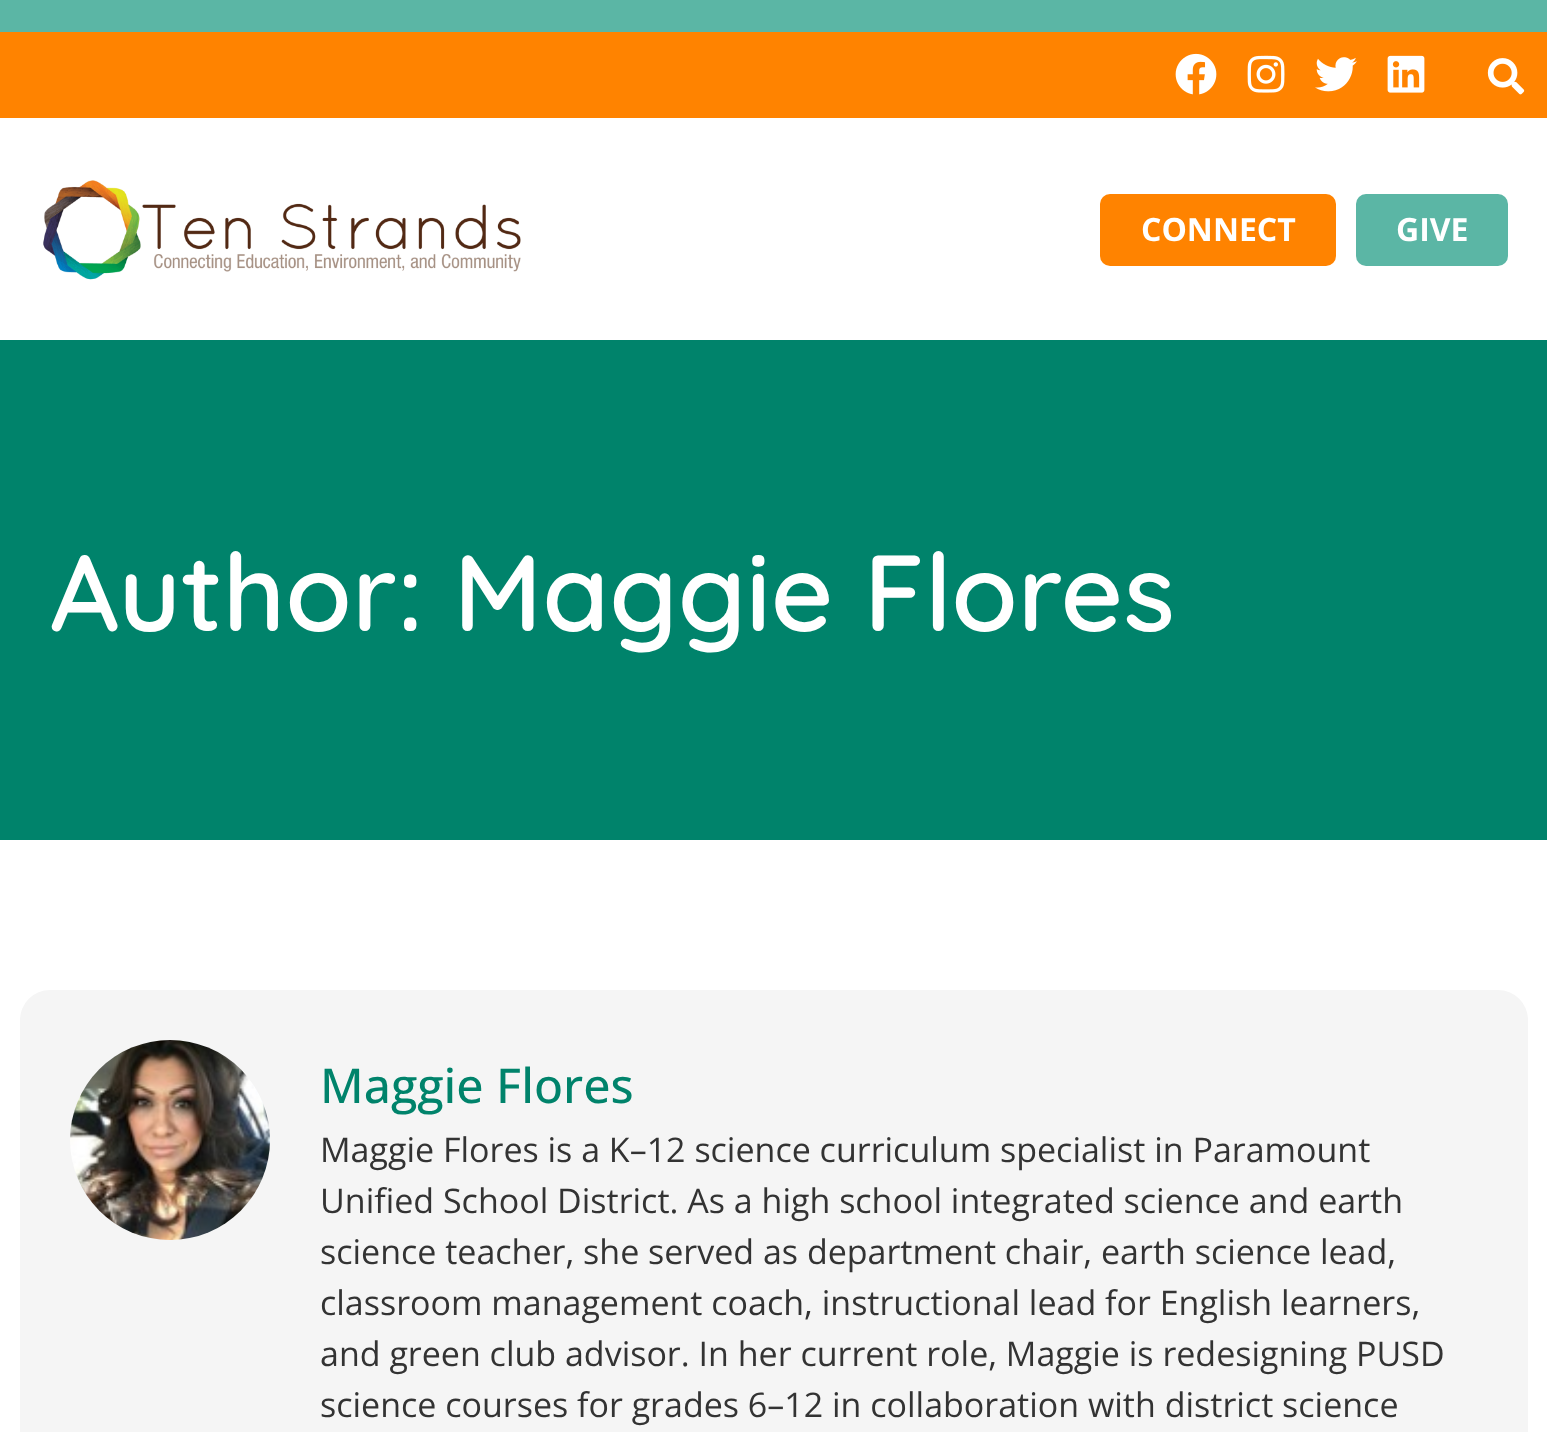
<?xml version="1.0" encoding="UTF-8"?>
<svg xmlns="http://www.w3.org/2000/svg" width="1547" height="1432">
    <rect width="100%" height="100%" fill="#FFFFFF"/>
    <rect x="0" y="0" width="1547" height="32" fill="#5BB6A5"/>
    <rect x="0" y="32" width="1547" height="86" fill="#FF8300"/>
    <image x="1175" y="53" width="42" height="42" href="img_01.png"/>
    <image x="1247" y="55" width="38" height="38" href="img_02.png"/>
    <image x="1315" y="57" width="42" height="35" href="img_03.png"/>
    <image x="1387" y="55" width="38" height="38" href="img_04.png"/>
    <image x="1487" y="58" width="38" height="37" href="img_05.png"/>
    <image x="43" y="180" width="478" height="100" href="img_06.png"/>
    <rect x="1100" y="194" width="236" height="72" rx="10" fill="#FF8300"/>
    <text x="1141" y="241" font-family="Open Sans" font-size="32" font-weight="700" fill="#FFFFFF">CONNECT</text>
    <rect x="1356" y="194" width="152" height="72" rx="10" fill="#5BB6A5"/>
    <text x="1396" y="241" font-family="Open Sans" font-size="32" font-weight="700" fill="#FFFFFF">GIVE</text>
    <rect x="0" y="340" width="1547" height="500" fill="#00836B"/>
    <text x="50" y="631" font-family="Quicksand" font-size="108" font-weight="600" fill="#FFFFFF">Author: Maggie Flores</text>
    <rect x="20" y="990" width="1508" height="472" rx="30" fill="#F5F5F5"/>
    <image x="70" y="1040" width="200" height="200" href="img_07.png"/>
    <text x="320" y="1103" font-family="Open Sans" font-size="48" font-weight="500" fill="#00836B">Maggie Flores</text>
    <text font-family="Open Sans" font-size="34" fill="#333333">
        <tspan x="320" y="1162">Maggie Flores is a K–12 science curriculum specialist in Paramount</tspan>
        <tspan x="320" y="1213">Unified School District. As a high school integrated science and earth</tspan>
        <tspan x="320" y="1264">science teacher, she served as department chair, earth science lead,</tspan>
        <tspan x="320" y="1315">classroom management coach, instructional lead for English learners,</tspan>
        <tspan x="320" y="1366">and green club advisor. In her current role, Maggie is redesigning PUSD</tspan>
        <tspan x="320" y="1417">science courses for grades 6–12 in collaboration with district science</tspan>
    </text>
</svg>
